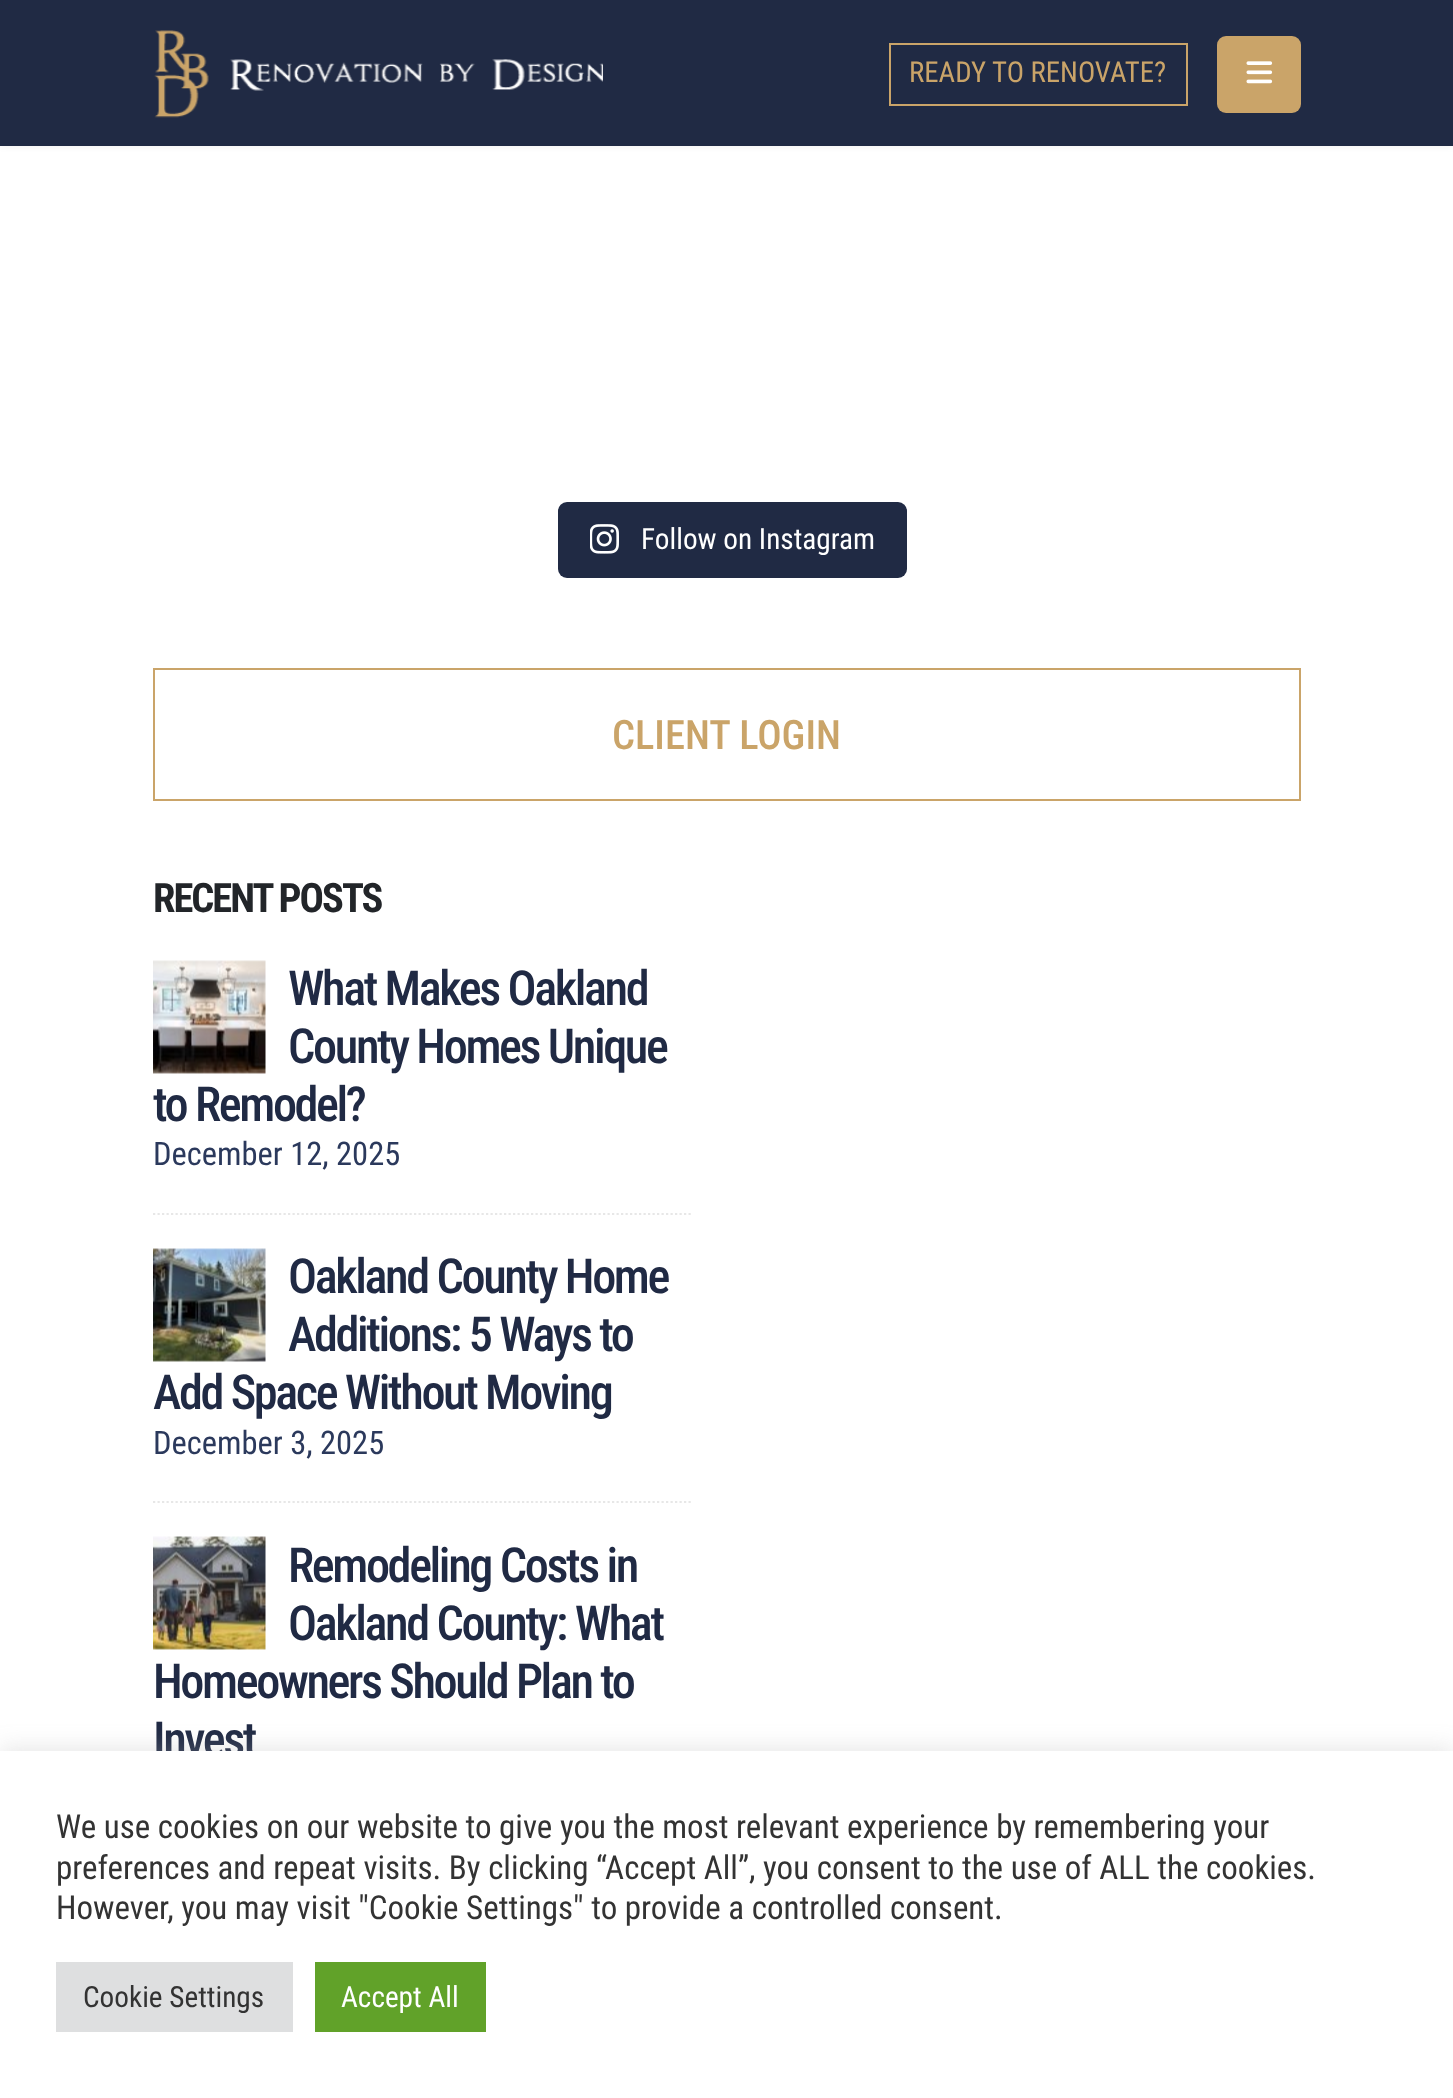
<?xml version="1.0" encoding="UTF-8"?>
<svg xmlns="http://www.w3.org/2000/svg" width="1453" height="2098">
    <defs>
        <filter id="blur1" x="-50%" y="-200%" width="200%" height="500%"><feGaussianBlur stdDeviation="3.5"/></filter>
        <filter id="blur2" x="-50%" y="-200%" width="200%" height="500%"><feGaussianBlur stdDeviation="11"/></filter>
    </defs>
    <rect width="100%" height="100%" fill="#FFFFFF"/>
    <rect x="0" y="0" width="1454" height="146" fill="#000000" fill-opacity="0.06" filter="url(#blur1)"/>
    <rect x="0" y="0" width="1453" height="146" fill="#202A44"/>
    <image x="154" y="30" width="449" height="88" href="img_01.png"/>
    <rect x="890" y="44" width="297" height="61" fill="none" stroke="#CAA469" stroke-width="2"/>
    <text x="909" y="82" font-family="Roboto Condensed" font-size="28.75" fill="#CAA469">READY TO RENOVATE?</text>
    <rect x="1217" y="36" width="84" height="77" rx="9" fill="#CAA469"/>
    <image x="1246" y="61" width="27" height="23" href="img_02.png"/>
    <rect x="558" y="502" width="349" height="76" rx="9" fill="#202A44"/>
    <image x="590" y="524" width="29" height="30" href="img_03.png"/>
    <text x="641" y="549" font-family="Roboto Condensed" font-size="29.25" fill="#FFFFFF">Follow on Instagram</text>
    <rect x="154" y="669" width="1146" height="131" fill="none" stroke="#CAA469" stroke-width="2"/>
    <text x="612" y="749" font-family="Roboto Condensed" font-size="40.5" font-weight="500" fill="#CAA469">CLIENT LOGIN</text>
    <text x="153" y="912" font-family="Roboto Condensed" font-size="40.5" font-weight="700" letter-spacing="-2" fill="#222529">RECENT POSTS</text>
    <image x="153" y="960" width="113" height="114" href="img_04.png"/>
    <text font-family="Roboto Condensed" font-size="48.25" font-weight="500" letter-spacing="-2.4" fill="#202A44">
        <tspan x="288" y="1005">What Makes Oakland</tspan>
        <tspan x="288" y="1063">County Homes Unique</tspan>
    </text>
    <text x="153" y="1121" font-family="Roboto Condensed" font-size="48.25" font-weight="500" letter-spacing="-2.4" fill="#202A44">to Remodel?</text>
    <text x="153" y="1165" font-family="Roboto Condensed" font-size="32.5" fill="#2B395C">December 12, 2025</text>
    <path d="M 153 1214 H 693" fill="none" stroke="#E7E7E7" stroke-width="2.2" stroke-dasharray="2.25 2.25"/>
    <image x="153" y="1248" width="113" height="114" href="img_05.png"/>
    <text font-family="Roboto Condensed" font-size="48.25" font-weight="500" letter-spacing="-2.4" fill="#202A44">
        <tspan x="288" y="1293">Oakland County Home</tspan>
        <tspan x="288" y="1351">Additions: 5 Ways to</tspan>
    </text>
    <text x="153" y="1409" font-family="Roboto Condensed" font-size="48.25" font-weight="500" letter-spacing="-2.4" fill="#202A44">Add Space Without Moving</text>
    <text x="153" y="1454" font-family="Roboto Condensed" font-size="32.5" fill="#2B395C">December 3, 2025</text>
    <path d="M 153 1502 H 693" fill="none" stroke="#E7E7E7" stroke-width="2.2" stroke-dasharray="2.25 2.25"/>
    <image x="153" y="1536" width="113" height="114" href="img_06.png"/>
    <text font-family="Roboto Condensed" font-size="48.25" font-weight="500" letter-spacing="-2.4" fill="#202A44">
        <tspan x="288" y="1582">Remodeling Costs in</tspan>
        <tspan x="288" y="1640">Oakland County: What</tspan>
    </text>
    <text font-family="Roboto Condensed" font-size="48.25" font-weight="500" letter-spacing="-2.4" fill="#202A44">
        <tspan x="153" y="1698">Homeowners Should Plan to</tspan>
        <tspan x="153" y="1756">Invest</tspan>
    </text>
    <rect x="0" y="1748" width="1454" height="349" fill="#ACABAB" fill-opacity="0.3" filter="url(#blur2)"/>
    <rect x="0" y="1751" width="1453" height="347" fill="#FFFFFF"/>
    <text font-family="Roboto Condensed" font-size="33" fill="#333333">
        <tspan x="56" y="1838">We use cookies on our website to give you the most relevant experience by remembering your</tspan>
        <tspan x="56" y="1879">preferences and repeat visits. By clicking “Accept All”, you consent to the use of ALL the cookies.</tspan>
        <tspan x="56" y="1919">However, you may visit "Cookie Settings" to provide a controlled consent.</tspan>
    </text>
    <rect x="56" y="1962" width="237" height="70" fill="#DEDFE0"/>
    <text x="83" y="2007" font-family="Roboto Condensed" font-size="29.25" fill="#333333">Cookie Settings</text>
    <rect x="315" y="1962" width="171" height="70" fill="#61A229"/>
    <text x="341" y="2007" font-family="Roboto Condensed" font-size="29.25" fill="#FFFFFF">Accept All</text>
</svg>
